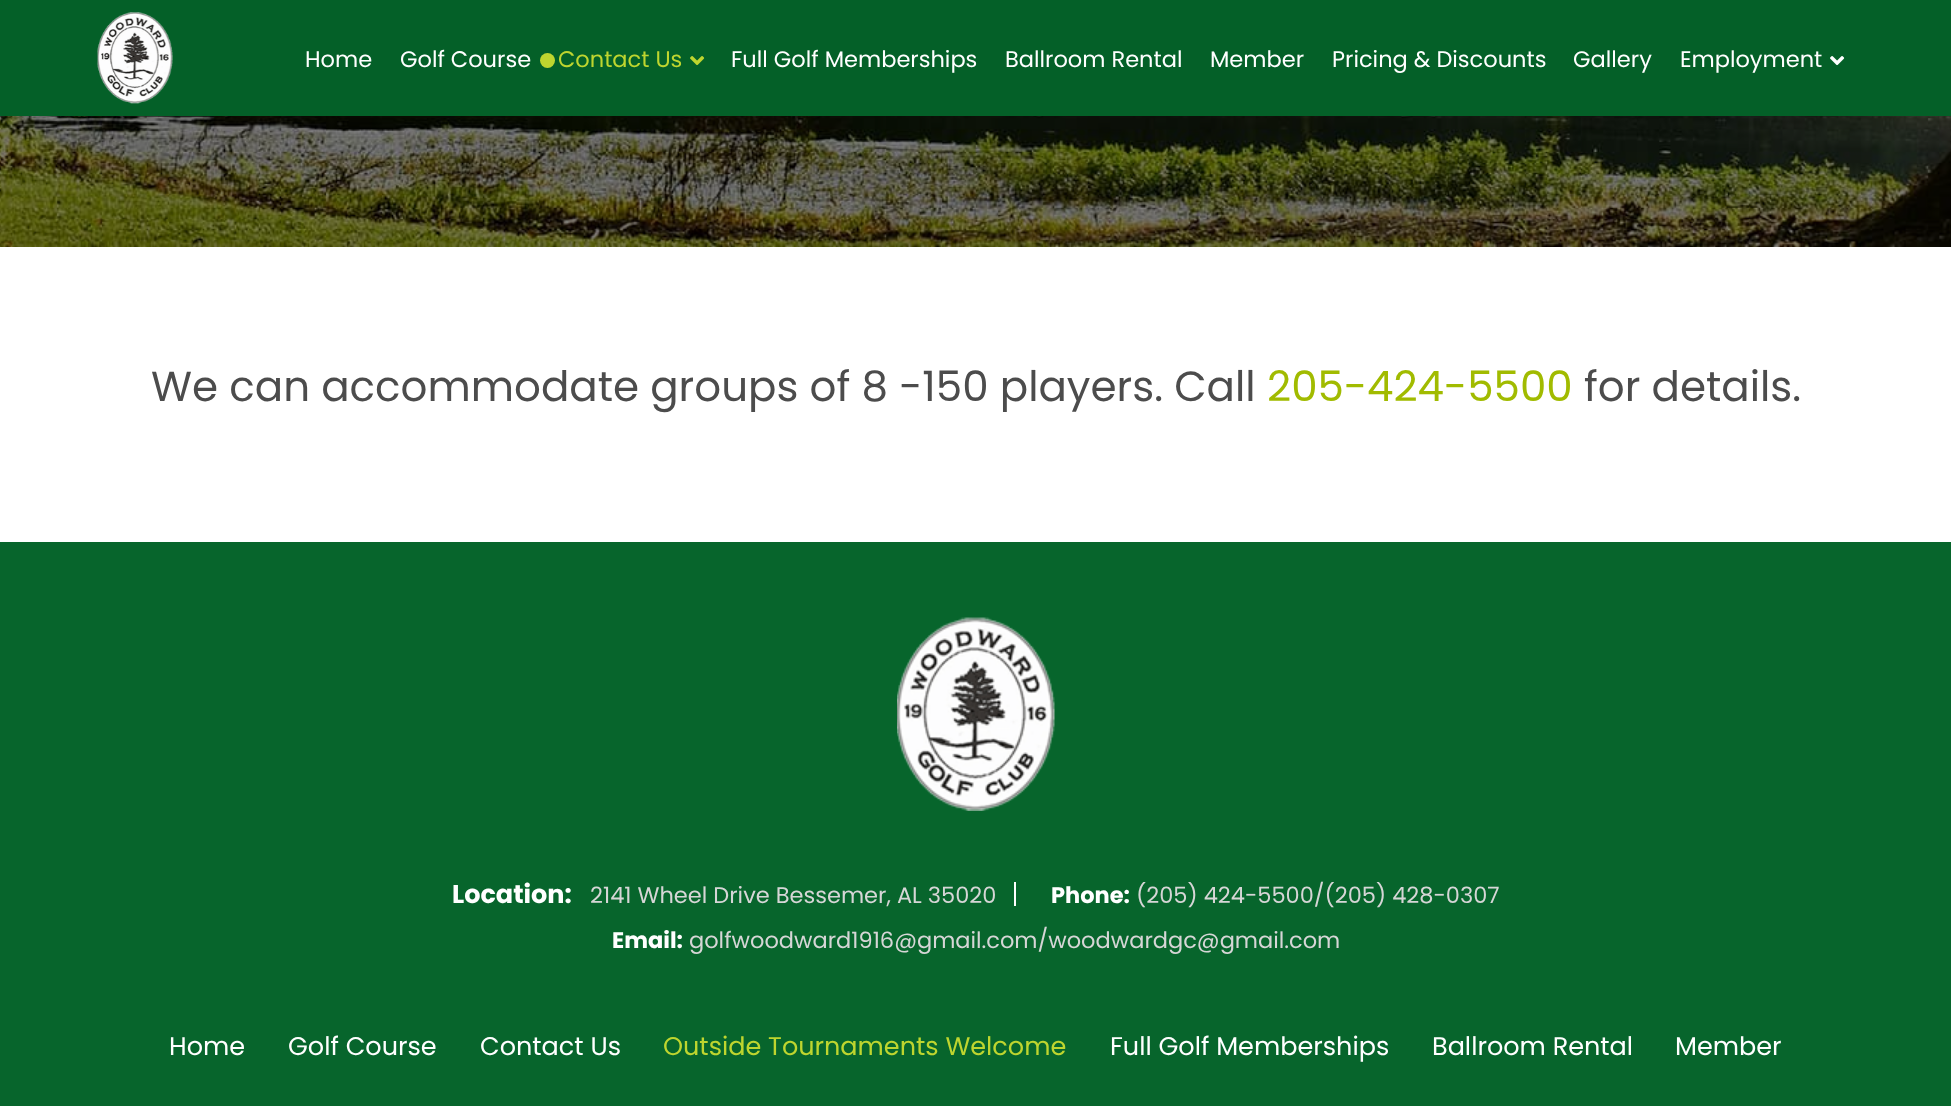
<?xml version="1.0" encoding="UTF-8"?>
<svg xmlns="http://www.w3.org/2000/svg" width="1951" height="1106">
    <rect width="100%" height="100%" fill="#FFFFFF"/>
    <rect x="0" y="0" width="1951" height="116" fill="#046028"/>
    <image x="97" y="12" width="76" height="92" href="img_01.png"/>
    <text x="305" y="67" font-family="Poppins" font-size="22.5" fill="#FFFFFF">Home</text>
    <text x="400" y="67" font-family="Poppins" font-size="22.5" fill="#FFFFFF">Golf Course</text>
    <circle cx="547.5" cy="60.5" r="7.5" fill="#BED52F"/>
    <text x="558" y="67" font-family="Poppins" font-size="22.5" fill="#BED52F">Contact Us</text>
    <image x="690" y="56" width="15" height="10" href="img_02.png"/>
    <text x="731" y="67" font-family="Poppins" font-size="22.5" fill="#FFFFFF">Full Golf Memberships</text>
    <text x="1005" y="67" font-family="Poppins" font-size="22.5" fill="#FFFFFF">Ballroom Rental</text>
    <text x="1210" y="67" font-family="Poppins" font-size="22.5" fill="#FFFFFF">Member</text>
    <text x="1332" y="67" font-family="Poppins" font-size="22.5" fill="#FFFFFF">Pricing &amp; Discounts</text>
    <text x="1573" y="67" font-family="Poppins" font-size="22.5" fill="#FFFFFF">Gallery</text>
    <text x="1680" y="67" font-family="Poppins" font-size="22.5" fill="#FFFFFF">Employment</text>
    <image x="1830" y="56" width="15" height="10" href="img_03.png"/>
    <image x="0" y="116" width="1951" height="131" href="img_04.png"/>
    <text x="151" y="401" font-family="Poppins" font-size="42" fill="#4C4C4C">We can accommodate groups of 8 -150 players. Call</text>
    <text x="1267" y="401" font-family="Poppins" font-size="42" fill="#A1BB00">205-424-5500</text>
    <text x="1584" y="401" font-family="Poppins" font-size="42" fill="#4C4C4C">for details.</text>
    <rect x="0" y="542" width="1951" height="564" fill="#07652C"/>
    <image x="897" y="617" width="158" height="194" href="img_05.png"/>
    <text x="452" y="903" font-family="Poppins" font-size="25.5" font-weight="700" fill="#FFFFFF">Location:</text>
    <text x="590" y="903" font-family="Poppins" font-size="22.5" fill="#D6D6D6">2141 Wheel Drive Bessemer, AL 35020</text>
    <rect x="1014" y="882" width="2" height="24" fill="#FFFFFF"/>
    <text x="1051" y="903" font-family="Poppins" font-size="22.5" font-weight="700" fill="#FFFFFF">Phone:</text>
    <text x="1136" y="903" font-family="Poppins" font-size="22.5" fill="#D6D6D6">(205) 424-5500/(205) 428-0307</text>
    <text x="612" y="948" font-family="Poppins" font-size="22.5" font-weight="700" fill="#FFFFFF">Email:</text>
    <text x="689" y="948" font-family="Poppins" font-size="22.5" fill="#D6D6D6">golfwoodward1916@gmail.com/woodwardgc@gmail.com</text>
    <text x="169" y="1055" font-family="Poppins" font-size="25.5" fill="#FFFFFF">Home</text>
    <text x="288" y="1055" font-family="Poppins" font-size="25.5" fill="#FFFFFF">Golf Course</text>
    <text x="480" y="1055" font-family="Poppins" font-size="25.5" fill="#FFFFFF">Contact Us</text>
    <text x="663" y="1055" font-family="Poppins" font-size="25.5" fill="#BED52F">Outside Tournaments Welcome</text>
    <text x="1110" y="1055" font-family="Poppins" font-size="25.5" fill="#FFFFFF">Full Golf Memberships</text>
    <text x="1432" y="1055" font-family="Poppins" font-size="25.5" fill="#FFFFFF">Ballroom Rental</text>
    <text x="1675" y="1055" font-family="Poppins" font-size="25.5" fill="#FFFFFF">Member</text>
</svg>
